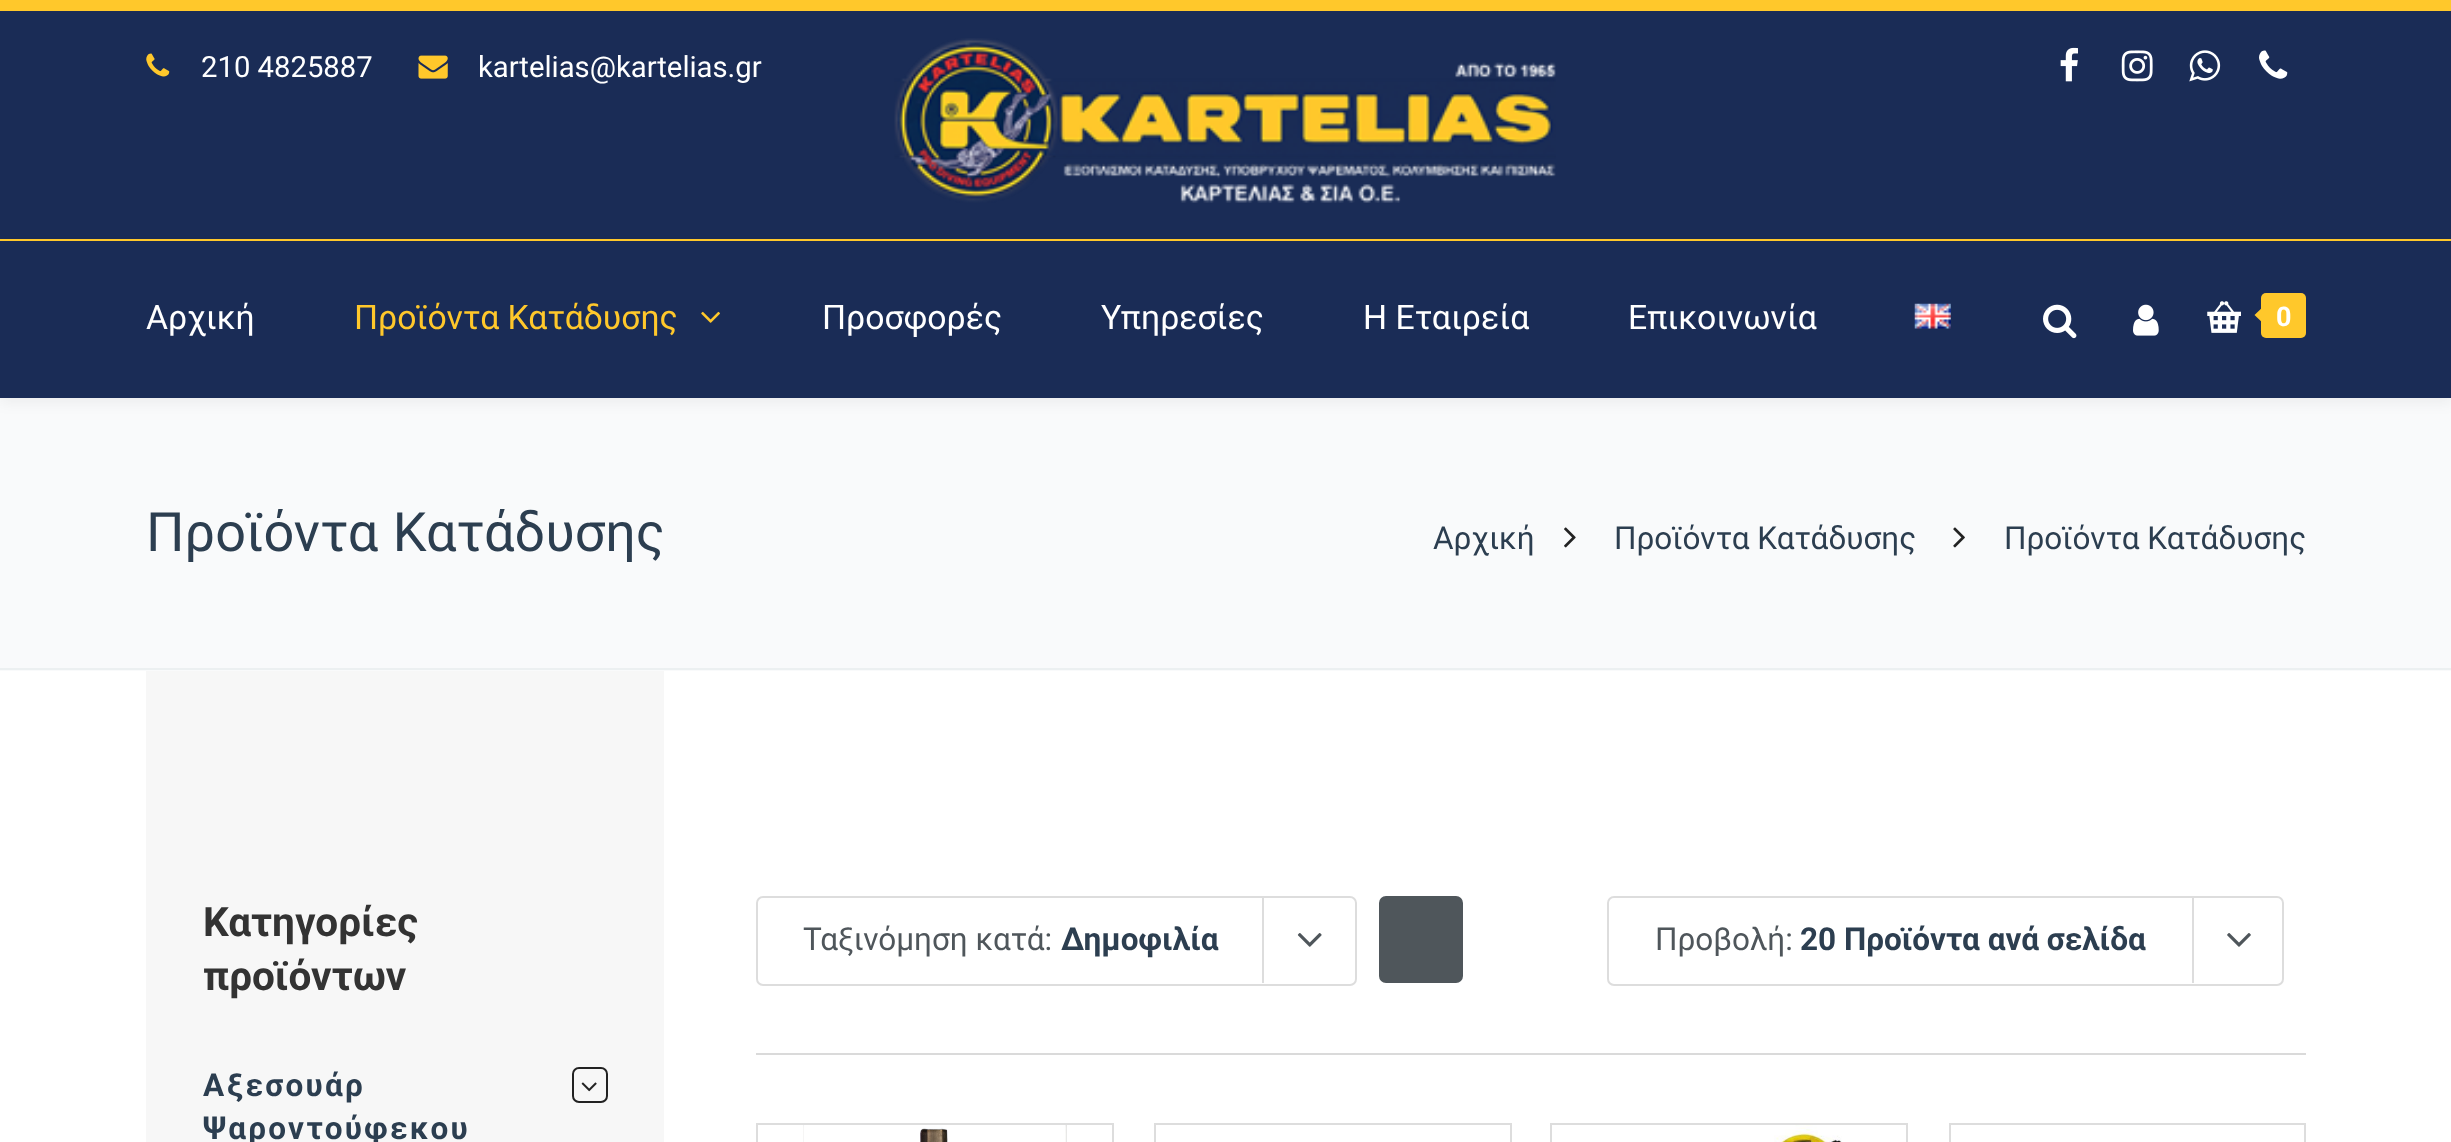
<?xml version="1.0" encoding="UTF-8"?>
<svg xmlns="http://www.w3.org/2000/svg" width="2451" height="1142">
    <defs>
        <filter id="blur1" x="-50%" y="-200%" width="200%" height="500%"><feGaussianBlur stdDeviation="7"/></filter>
    </defs>
    <rect width="100%" height="100%" fill="#FFFFFF"/>
    <rect x="0" y="11" width="2451" height="228" fill="#1A2C56"/>
    <rect x="0" y="0" width="2451" height="11" fill="#FFC82B"/>
    <image x="146" y="53" width="24" height="24" href="img_01.png"/>
    <text x="201" y="77" font-family="Roboto" font-size="29.25" fill="#FFFFFF">210 4825887</text>
    <image x="418" y="55" width="30" height="24" href="img_02.png"/>
    <text x="478" y="77" font-family="Roboto" font-size="29.25" fill="#FFFFFF">kartelias@kartelias.gr</text>
    <image x="2060" y="47" width="18" height="35" href="img_03.png"/>
    <image x="2121" y="50" width="32" height="32" href="img_04.png"/>
    <image x="2189" y="50" width="32" height="32" href="img_05.png"/>
    <image x="2259" y="50" width="29" height="29" href="img_06.png"/>
    <image x="894" y="38" width="662" height="165" href="img_07.png"/>
    <rect x="0" y="398" width="2451" height="273" fill="#F9FAFB"/>
    <rect x="0" y="243" width="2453" height="160" fill="#000000" fill-opacity="0.05" filter="url(#blur1)"/>
    <rect x="0" y="241" width="2451" height="157" fill="#1A2C56"/>
    <rect x="0" y="239" width="2451" height="2" fill="#FFC82B"/>
    <text x="146" y="329" font-family="Roboto" font-size="33.75" fill="#FFFFFF">Αρχική</text>
    <text x="354" y="329" font-family="Roboto" font-size="33.75" fill="#FFC82B">Προϊόντα Κατάδυσης</text>
    <image x="701" y="311" width="19" height="12" href="img_08.png"/>
    <text x="822" y="329" font-family="Roboto" font-size="33.75" fill="#FFFFFF">Προσφορές</text>
    <text x="1101" y="329" font-family="Roboto" font-size="33.75" fill="#FFFFFF">Υπηρεσίες</text>
    <text x="1363" y="329" font-family="Roboto" font-size="33.75" fill="#FFFFFF">Η Εταιρεία</text>
    <text x="1628" y="329" font-family="Roboto" font-size="33.75" fill="#FFFFFF">Επικοινωνία</text>
    <image x="1914" y="303" width="37" height="26" href="img_09.png"/>
    <image x="2043" y="304" width="34" height="35" href="img_10.png"/>
    <image x="2133" y="304" width="26" height="32" href="img_11.png"/>
    <image x="2207" y="301" width="34" height="32" href="img_12.png"/>
    <rect x="2261" y="293" width="45" height="45" rx="5" fill="#FFC82B"/>
    <path d="M 2266 304 V 326 L 2254.5 315 Z" fill="#FFC82B"/>
    <text x="2276" y="326" font-family="Roboto" font-size="27" font-weight="700" fill="#FFFFFF">0</text>
    <rect x="0" y="668" width="2451" height="2" fill="#ECF0F1"/>
    <text x="146" y="551" word-spacing="1" font-family="Roboto" font-size="54" fill="#2C3E50">Προϊόντα Κατάδυσης</text>
    <text x="1433" y="549" font-family="Roboto" font-size="31.5" fill="#2C3E50">Αρχική</text>
    <image x="1564" y="527" width="12" height="21" href="img_13.png"/>
    <text x="1614" y="549" font-family="Roboto" font-size="31.5" fill="#2C3E50">Προϊόντα Κατάδυσης</text>
    <image x="1953" y="527" width="12" height="21" href="img_14.png"/>
    <text x="2004" y="549" font-family="Roboto" font-size="31.5" fill="#2C3E50">Προϊόντα Κατάδυσης</text>
    <rect x="146" y="671" width="518" height="471" fill="#F7F7F7"/>
    <text font-family="Roboto" font-size="40.5" font-weight="700" fill="#333333">
        <tspan x="203" y="936">Κατηγορίες</tspan>
        <tspan x="203" y="990">προϊόντων</tspan>
    </text>
    <text font-family="Roboto" font-size="31.5" font-weight="700" letter-spacing="2.25" fill="#2C3E50">
        <tspan x="203" y="1096">Αξεσουάρ</tspan>
        <tspan x="203" y="1139">Ψαροντούφεκου</tspan>
    </text>
    <rect x="573" y="1068" width="34" height="34" rx="6" fill="none" stroke="#222222" stroke-width="2"/>
    <image x="581" y="1082" width="16" height="10" href="img_15.png"/>
    <rect x="756" y="1053" width="1550" height="2" fill="#DADADA"/>
    <rect x="757" y="897" width="599" height="88" rx="6" fill="none" stroke="#DDDDDD" stroke-width="2"/>
    <text x="803" y="950" font-family="Roboto" font-size="31.5" fill="#4F565B">Ταξινόμηση κατά:</text>
    <text x="1061" y="950" font-family="Roboto" font-size="31.5" font-weight="700" fill="#2C3E50">Δημοφιλία</text>
    <rect x="1262" y="896" width="2" height="87" fill="#DDDDDD"/>
    <image x="1297" y="933" width="25" height="14" href="img_16.png"/>
    <rect x="1380" y="897" width="82" height="85" rx="6" fill="#4F565B" stroke="#4F565B" stroke-width="2"/>
    <rect x="1608" y="897" width="675" height="88" rx="6" fill="none" stroke="#DDDDDD" stroke-width="2"/>
    <text x="1655" y="950" font-family="Roboto" font-size="31.5" fill="#4F565B">Προβολή:</text>
    <text x="1800" y="950" font-family="Roboto" font-size="31.5" font-weight="700" fill="#2C3E50">20 Προϊόντα ανά σελίδα</text>
    <rect x="2192" y="896" width="2" height="87" fill="#DDDDDD"/>
    <image x="2227" y="933" width="24" height="14" href="img_17.png"/>
    <rect x="757" y="1124" width="356" height="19" fill="none" stroke="#DDDDDD" stroke-width="2"/>
    <image x="803" y="1125" width="264" height="17" href="img_18.png"/>
    <rect x="1155" y="1124" width="356" height="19" fill="none" stroke="#DDDDDD" stroke-width="2"/>
    <rect x="1551" y="1124" width="356" height="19" fill="none" stroke="#DDDDDD" stroke-width="2"/>
    <image x="1774" y="1125" width="68" height="17" href="img_19.png"/>
    <rect x="1950" y="1124" width="355" height="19" fill="none" stroke="#DDDDDD" stroke-width="2"/>
</svg>
